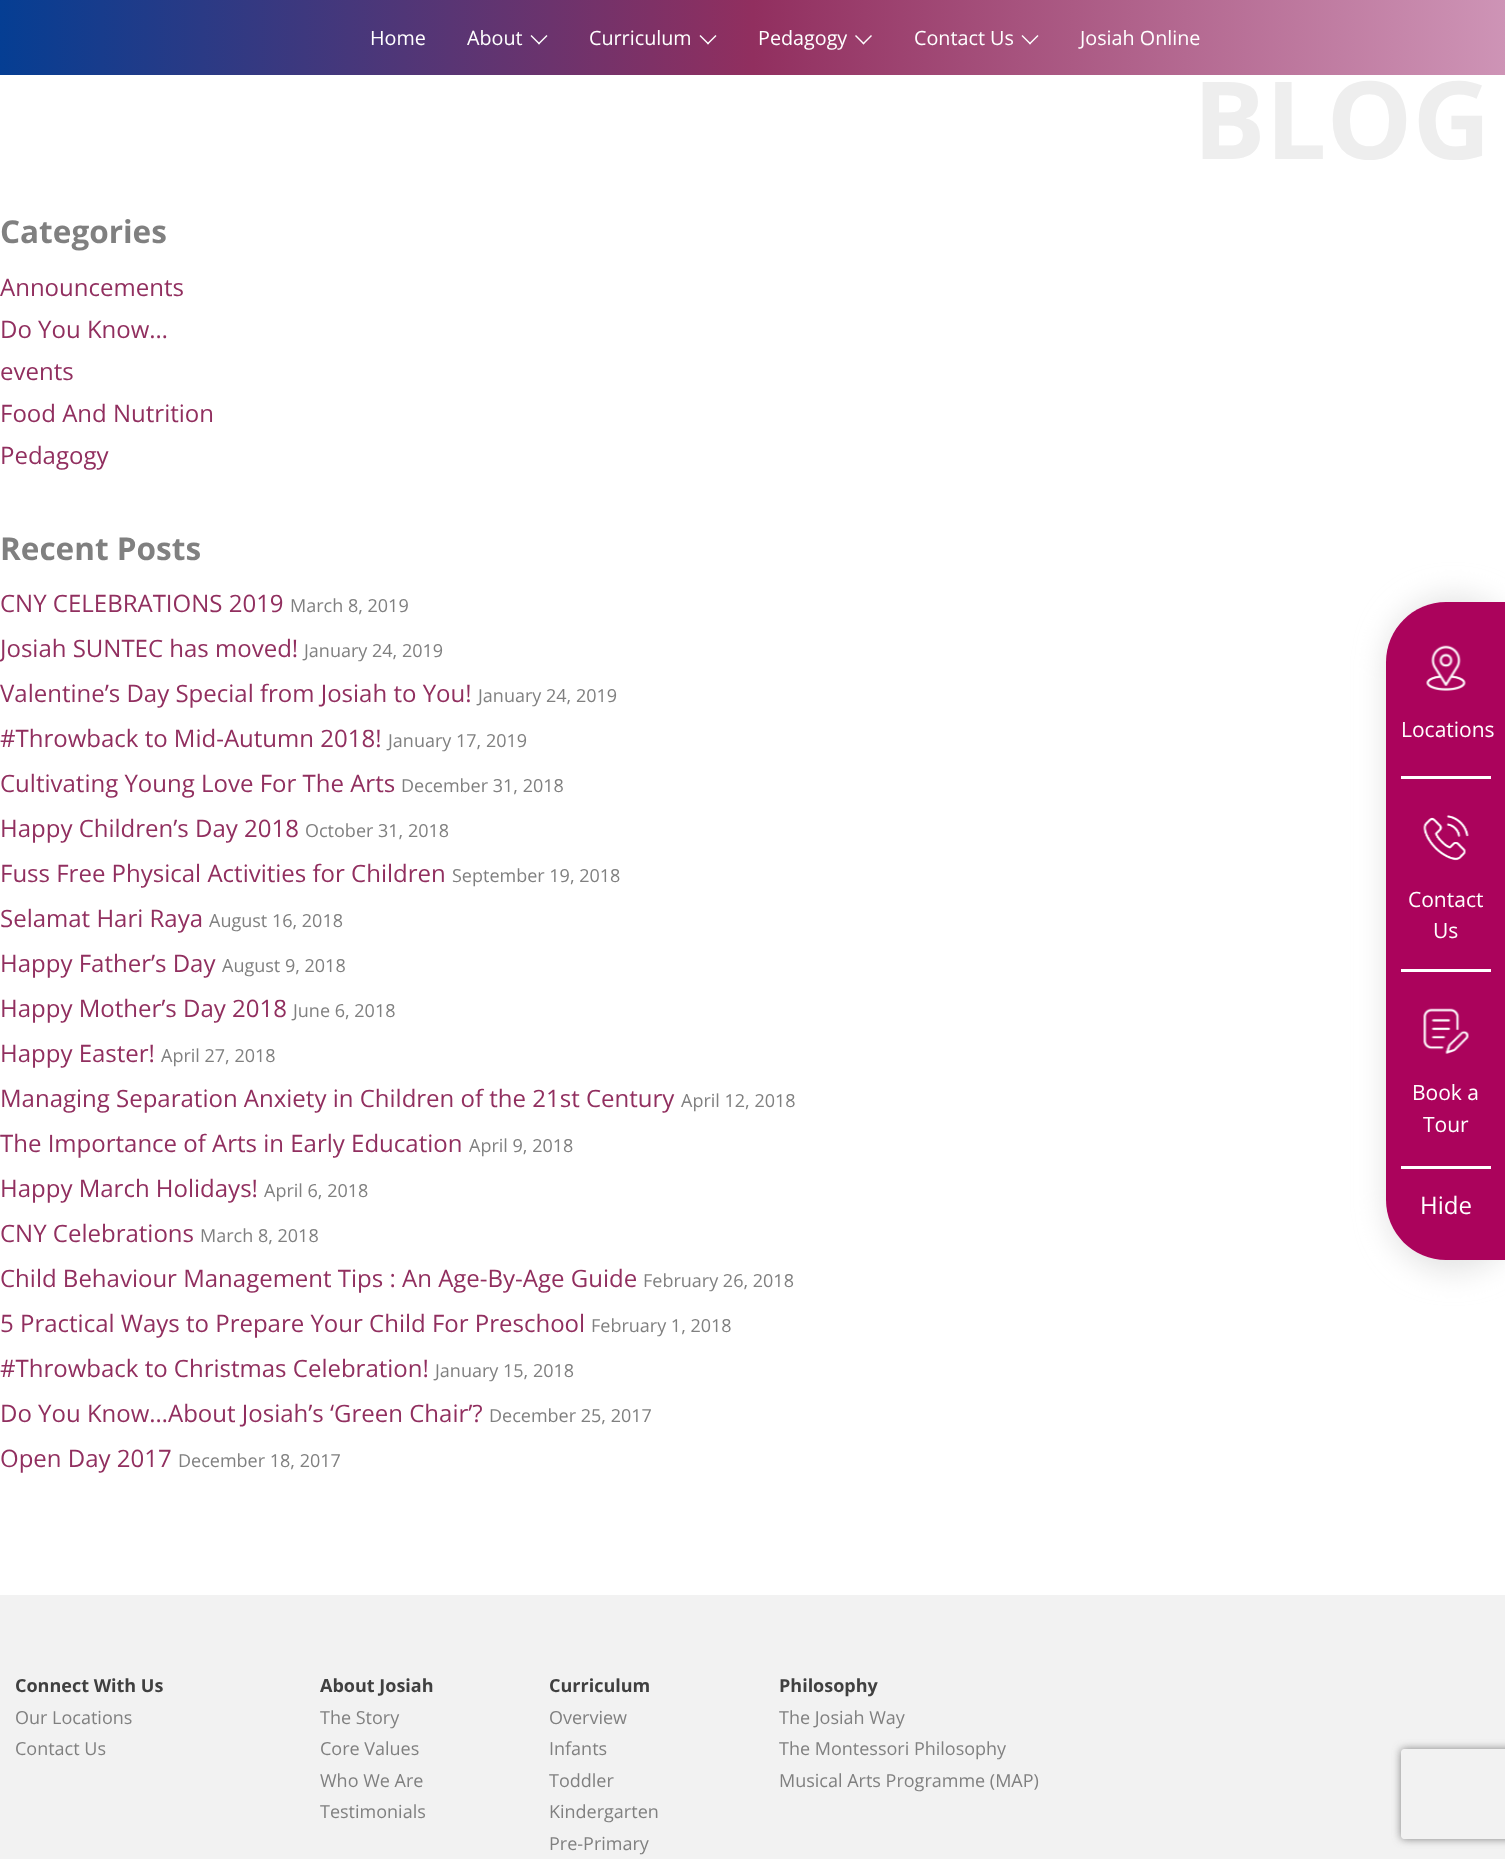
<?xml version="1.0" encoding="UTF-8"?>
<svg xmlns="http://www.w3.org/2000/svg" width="1505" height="1859">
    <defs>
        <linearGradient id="g1" gradientUnits="userSpaceOnUse" x1="0" y1="38" x2="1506" y2="37"><stop offset="0" stop-color="#053E93"/><stop offset="0.5" stop-color="#912F5F"/><stop offset="1" stop-color="#CE94B6"/></linearGradient>
        <clipPath id="clip1"><path d="M 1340 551 H 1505 V 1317 H 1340 Z M 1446 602 H 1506 V 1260 H 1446 C 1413 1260 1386 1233 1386 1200 V 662 C 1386 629 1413 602 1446 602 Z" clip-rule="evenodd"/></clipPath>
        <filter id="blur1" x="-50%" y="-200%" width="200%" height="500%"><feGaussianBlur stdDeviation="15"/></filter>
        <clipPath id="clip2"><path d="M 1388 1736 H 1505 V 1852 H 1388 Z M 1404 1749 H 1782 C 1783.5 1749 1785 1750.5 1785 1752 V 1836 C 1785 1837.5 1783.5 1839 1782 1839 H 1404 C 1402.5 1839 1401 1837.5 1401 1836 V 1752 C 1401 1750.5 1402.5 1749 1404 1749 Z" clip-rule="evenodd"/></clipPath>
        <filter id="blur2" x="-50%" y="-200%" width="200%" height="500%"><feGaussianBlur stdDeviation="4"/></filter>
    </defs>
    <rect width="100%" height="100%" fill="#FFFFFF"/>
    <rect x="0" y="0" width="1505" height="75" fill="url(#g1)"/>
    <text x="370" y="45" font-family="Open Sans" font-size="19.75" fill="#FFFFFF">Home</text>
    <text x="467" y="45" font-family="Open Sans" font-size="19.75" fill="#FFFFFF">About</text>
    <path d="M 538 43.5 L 546.5 35 L 547.5 36 L 539 44.5 Z" fill="#FFFFFF"/>
    <path d="M 530.5 36 L 531.5 35 L 540 43.5 L 539 44.5 Z" fill="#FFFFFF"/>
    <text x="589" y="45" font-family="Open Sans" font-size="19.75" fill="#FFFFFF">Curriculum</text>
    <path d="M 707 43.5 L 715.5 35 L 716.5 36 L 708 44.5 Z" fill="#FFFFFF"/>
    <path d="M 699.5 36 L 700.5 35 L 709 43.5 L 708 44.5 Z" fill="#FFFFFF"/>
    <text x="758" y="45" font-family="Open Sans" font-size="19.75" fill="#FFFFFF">Pedagogy</text>
    <path d="M 862.5 43.5 L 871 35 L 872 36 L 863.5 44.5 Z" fill="#FFFFFF"/>
    <path d="M 855 36 L 856 35 L 864.5 43.5 L 863.5 44.5 Z" fill="#FFFFFF"/>
    <text x="914" y="45" font-family="Open Sans" font-size="19.75" fill="#FFFFFF">Contact Us</text>
    <path d="M 1029 43.5 L 1037.5 35 L 1038.5 36 L 1030 44.5 Z" fill="#FFFFFF"/>
    <path d="M 1021.5 36 L 1022.5 35 L 1031 43.5 L 1030 44.5 Z" fill="#FFFFFF"/>
    <text x="1080" y="45" font-family="Open Sans" font-size="19.75" fill="#FFFFFF">Josiah Online</text>
    <text x="1193" y="159" font-family="Open Sans" font-size="108" font-weight="700" fill="#EEEEEE">BLOG</text>
    <text x="0" y="243" font-family="Open Sans" font-size="31.5" font-weight="700" fill="#808080">Categories</text>
    <text font-family="Open Sans" font-size="24" fill="#912F5F">
        <tspan x="0" y="296">Announcements</tspan>
        <tspan x="0" y="338">Do You Know…</tspan>
        <tspan x="0" y="380">events</tspan>
        <tspan x="0" y="422">Food And Nutrition</tspan>
        <tspan x="0" y="464">Pedagogy</tspan>
    </text>
    <text x="0" y="560" font-family="Open Sans" font-size="31.5" font-weight="700" fill="#808080">Recent Posts</text>
    <text x="0" y="612" font-family="Open Sans" font-size="24" fill="#912F5F">CNY CELEBRATIONS 2019</text>
    <text x="290" y="612" font-family="Open Sans" font-size="18" fill="#808080">March 8, 2019</text>
    <text x="0" y="657" font-family="Open Sans" font-size="24" fill="#912F5F">Josiah SUNTEC has moved!</text>
    <text x="304" y="657" font-family="Open Sans" font-size="18" fill="#808080">January 24, 2019</text>
    <text x="0" y="702" font-family="Open Sans" font-size="24" fill="#912F5F">Valentine’s Day Special from Josiah to You!</text>
    <text x="478" y="702" font-family="Open Sans" font-size="18" fill="#808080">January 24, 2019</text>
    <text x="0" y="747" font-family="Open Sans" font-size="24" fill="#912F5F">#Throwback to Mid-Autumn 2018!</text>
    <text x="388" y="747" font-family="Open Sans" font-size="18" fill="#808080">January 17, 2019</text>
    <text x="0" y="792" font-family="Open Sans" font-size="24" fill="#912F5F">Cultivating Young Love For The Arts</text>
    <text x="401" y="792" font-family="Open Sans" font-size="18" fill="#808080">December 31, 2018</text>
    <text x="0" y="837" font-family="Open Sans" font-size="24" fill="#912F5F">Happy Children’s Day 2018</text>
    <text x="305" y="837" font-family="Open Sans" font-size="18" fill="#808080">October 31, 2018</text>
    <text x="0" y="882" font-family="Open Sans" font-size="24" fill="#912F5F">Fuss Free Physical Activities for Children</text>
    <text x="452" y="882" font-family="Open Sans" font-size="18" fill="#808080">September 19, 2018</text>
    <text x="0" y="927" font-family="Open Sans" font-size="24" fill="#912F5F">Selamat Hari Raya</text>
    <text x="209" y="927" font-family="Open Sans" font-size="18" fill="#808080">August 16, 2018</text>
    <text x="0" y="972" font-family="Open Sans" font-size="24" fill="#912F5F">Happy Father’s Day</text>
    <text x="222" y="972" font-family="Open Sans" font-size="18" fill="#808080">August 9, 2018</text>
    <text x="0" y="1017" font-family="Open Sans" font-size="24" fill="#912F5F">Happy Mother’s Day 2018</text>
    <text x="293" y="1017" font-family="Open Sans" font-size="18" fill="#808080">June 6, 2018</text>
    <text x="0" y="1062" font-family="Open Sans" font-size="24" fill="#912F5F">Happy Easter!</text>
    <text x="161" y="1062" font-family="Open Sans" font-size="18" fill="#808080">April 27, 2018</text>
    <text x="0" y="1107" font-family="Open Sans" font-size="24" fill="#912F5F">Managing Separation Anxiety in Children of the 21st Century</text>
    <text x="681" y="1107" font-family="Open Sans" font-size="18" fill="#808080">April 12, 2018</text>
    <text x="0" y="1152" font-family="Open Sans" font-size="24" fill="#912F5F">The Importance of Arts in Early Education</text>
    <text x="469" y="1152" font-family="Open Sans" font-size="18" fill="#808080">April 9, 2018</text>
    <text x="0" y="1197" font-family="Open Sans" font-size="24" fill="#912F5F">Happy March Holidays!</text>
    <text x="264" y="1197" font-family="Open Sans" font-size="18" fill="#808080">April 6, 2018</text>
    <text x="0" y="1242" font-family="Open Sans" font-size="24" fill="#912F5F">CNY Celebrations</text>
    <text x="200" y="1242" font-family="Open Sans" font-size="18" fill="#808080">March 8, 2018</text>
    <text x="0" y="1287" font-family="Open Sans" font-size="24" fill="#912F5F">Child Behaviour Management Tips : An Age-By-Age Guide</text>
    <text x="643" y="1287" font-family="Open Sans" font-size="18" fill="#808080">February 26, 2018</text>
    <text x="0" y="1332" font-family="Open Sans" font-size="24" fill="#912F5F">5 Practical Ways to Prepare Your Child For Preschool</text>
    <text x="591" y="1332" font-family="Open Sans" font-size="18" fill="#808080">February 1, 2018</text>
    <text x="0" y="1377" font-family="Open Sans" font-size="24" fill="#912F5F">#Throwback to Christmas Celebration!</text>
    <text x="435" y="1377" font-family="Open Sans" font-size="18" fill="#808080">January 15, 2018</text>
    <text x="0" y="1422" font-family="Open Sans" font-size="24" fill="#912F5F">Do You Know…About Josiah’s ‘Green Chair’?</text>
    <text x="489" y="1422" font-family="Open Sans" font-size="18" fill="#808080">December 25, 2017</text>
    <text x="0" y="1467" font-family="Open Sans" font-size="24" fill="#912F5F">Open Day 2017</text>
    <text x="178" y="1467" font-family="Open Sans" font-size="18" fill="#808080">December 18, 2017</text>
    <rect x="0" y="1595" width="1505" height="264" fill="#F2F2F2"/>
    <text x="15" y="1692" font-family="Open Sans" font-size="18" font-weight="700" fill="#404040">Connect With Us</text>
    <text font-family="Open Sans" font-size="18" fill="#808080">
        <tspan x="15" y="1724">Our Locations</tspan>
        <tspan x="15" y="1755">Contact Us</tspan>
    </text>
    <text x="320" y="1692" font-family="Open Sans" font-size="18" font-weight="700" fill="#404040">About Josiah</text>
    <text font-family="Open Sans" font-size="18" fill="#808080">
        <tspan x="320" y="1724">The Story</tspan>
        <tspan x="320" y="1755">Core Values</tspan>
        <tspan x="320" y="1787">Who We Are</tspan>
        <tspan x="320" y="1818">Testimonials</tspan>
    </text>
    <text x="549" y="1692" font-family="Open Sans" font-size="18" font-weight="700" fill="#404040">Curriculum</text>
    <text font-family="Open Sans" font-size="18" fill="#808080">
        <tspan x="549" y="1724">Overview</tspan>
        <tspan x="549" y="1755">Infants</tspan>
        <tspan x="549" y="1787">Toddler</tspan>
        <tspan x="549" y="1818">Kindergarten</tspan>
        <tspan x="549" y="1850">Pre-Primary</tspan>
    </text>
    <text x="779" y="1692" font-family="Open Sans" font-size="18" font-weight="700" fill="#404040">Philosophy</text>
    <text font-family="Open Sans" font-size="18" fill="#808080">
        <tspan x="779" y="1724">The Josiah Way</tspan>
        <tspan x="779" y="1755">The Montessori Philosophy</tspan>
        <tspan x="779" y="1787">Musical Arts Programme (MAP)</tspan>
    </text>
    <g clip-path="url(#clip1)">
        <rect x="1386" y="597" width="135" height="674" rx="67.5" fill="#E2E2E2" filter="url(#blur1)"/>
    </g>
    <path d="M 1446 602 H 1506 V 1260 H 1446 C 1413 1260 1386 1233 1386 1200 V 662 C 1386 629 1413 602 1446 602 Z" fill="#AB035C"/>
    <rect x="1401" y="776" width="90" height="3" fill="#FFFFFF"/>
    <image x="1426" y="645" width="40" height="46" href="img_01.png"/>
    <text x="1401" y="737" font-family="Open Sans" font-size="21" fill="#FFFFFF">Locations</text>
    <rect x="1401" y="969" width="90" height="3" fill="#FFFFFF"/>
    <image x="1423" y="815" width="46" height="46" href="img_02.png"/>
    <text x="1408" y="907" font-family="Open Sans" font-size="21" fill="#FFFFFF">Contact</text>
    <text x="1433" y="938" font-family="Open Sans" font-size="21" fill="#FFFFFF">Us</text>
    <rect x="1401" y="1166" width="90" height="3" fill="#FFFFFF"/>
    <image x="1423" y="1008" width="46" height="46" href="img_03.png"/>
    <text x="1412" y="1100" font-family="Open Sans" font-size="21" fill="#FFFFFF">Book a</text>
    <text x="1423" y="1132" font-family="Open Sans" font-size="21" fill="#FFFFFF">Tour</text>
    <text x="1420" y="1214" font-family="Open Sans" font-size="24" fill="#FFFFFF">Hide</text>
    <g clip-path="url(#clip2)">
        <rect x="1401" y="1749" width="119" height="90" rx="3" fill="#808080" filter="url(#blur2)"/>
    </g>
</svg>
